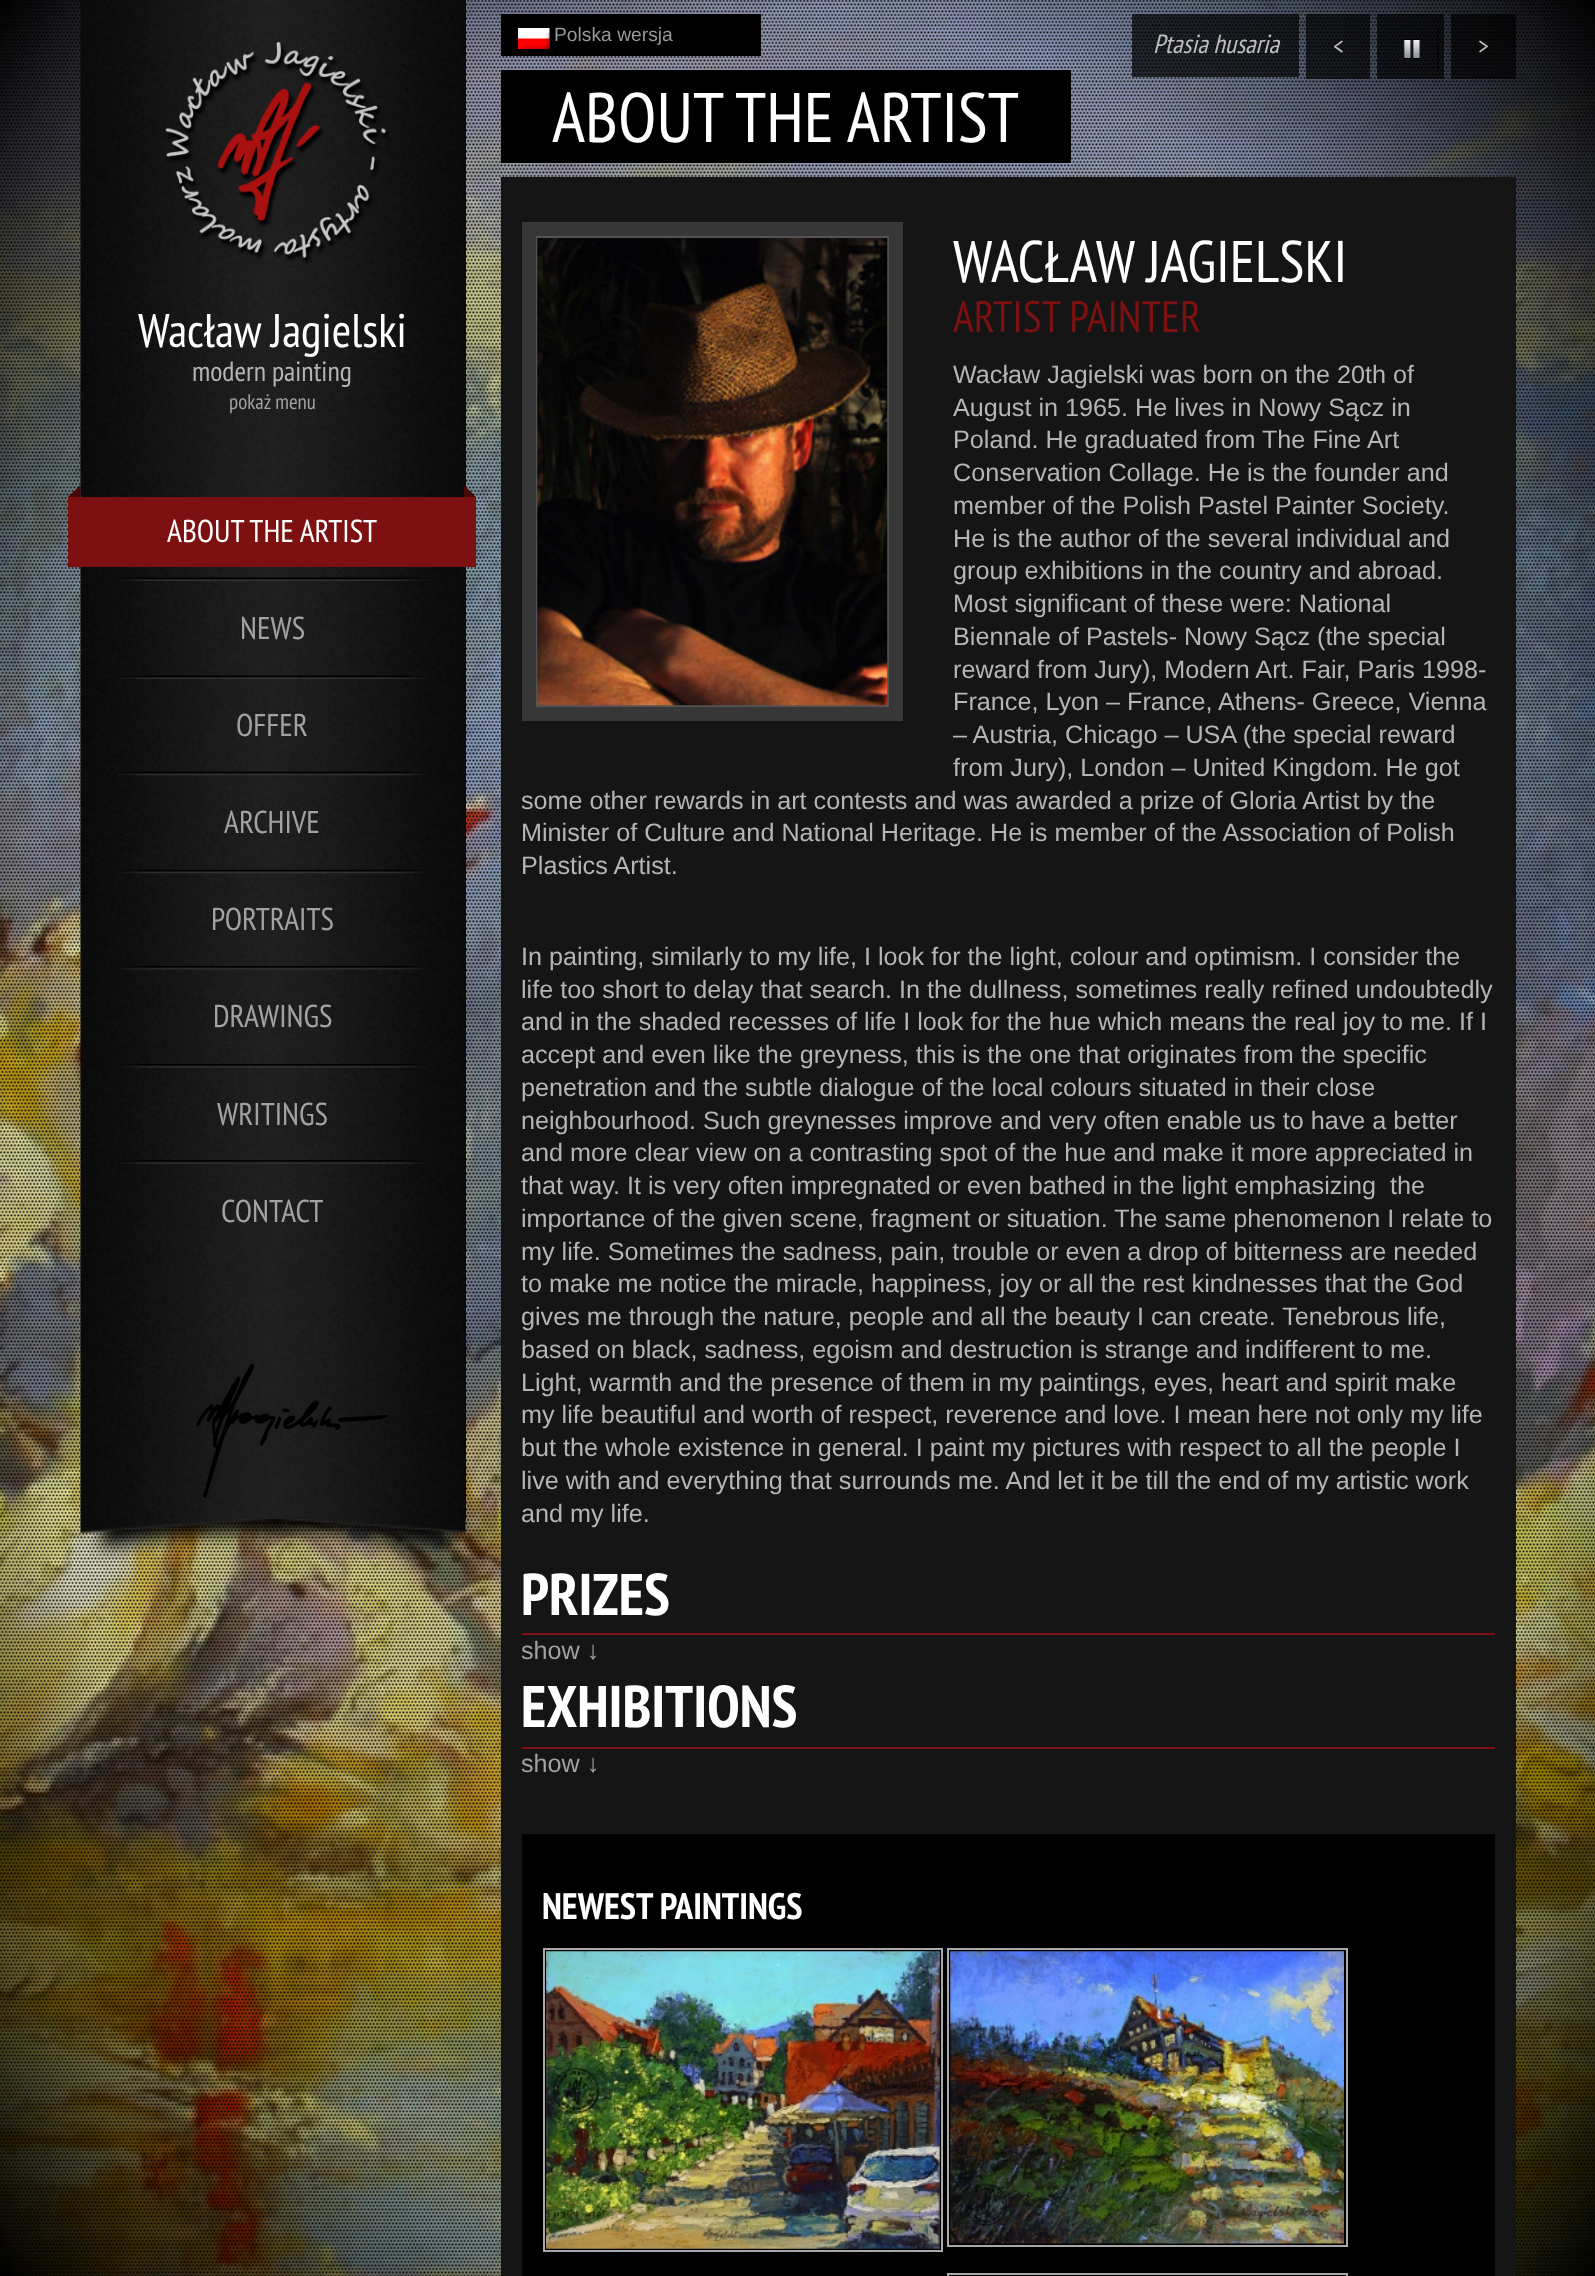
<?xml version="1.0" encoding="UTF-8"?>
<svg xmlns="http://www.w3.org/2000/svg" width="1595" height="2276">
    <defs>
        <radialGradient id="g1" gradientUnits="userSpaceOnUse" cx="0" cy="0" r="1" gradientTransform="matrix(1129 0 0 1610 798 1138)"><stop offset="0.7" stop-color="#000000" stop-opacity="0"/><stop offset="1" stop-color="#000000"/></radialGradient>
    </defs>
    <rect width="100%" height="100%" fill="#FFFFFF"/>
    <image x="0" y="0" width="1595" height="2276" href="img_01.png"/>
    <circle cx="49.5" cy="70.5" r="3.5" fill="#B5B5B5"/>
    <image x="0" y="0" width="1595" height="2276" href="img_02.png"/>
    <rect x="0" y="0" width="1595" height="2276" fill="url(#g1)"/>
    <rect x="465" y="0" width="1" height="1519" fill="#000000"/>
    <image x="80" y="0" width="386" height="1519" href="img_03.png"/>
    <image x="165" y="42" width="224" height="222" href="img_04.png"/>
    <text x="138" y="347" font-family="PT Sans Narrow" font-size="47.25" fill="#FFFFFF">Wacław Jagielski</text>
    <text x="192" y="381" font-family="PT Sans Narrow" font-size="28" fill="#B5B5B5">modern painting</text>
    <text x="229" y="409" font-family="PT Sans Narrow" font-size="21" fill="#A2A2A2">pokaż menu</text>
    <rect x="68" y="497" width="408" height="70" fill="#7D1111"/>
    <path d="M 80.5 485 V 497 H 68 Z" fill="#470808"/>
    <path d="M 464 497 V 485 L 476 497 Z" fill="#470808"/>
    <text x="167" y="542" font-family="PT Sans Narrow" font-size="31.5" fill="#FFFFFF">ABOUT THE ARTIST</text>
    <image x="118" y="577" width="312" height="4" href="img_05.png"/>
    <text x="240" y="639" font-family="PT Sans Narrow" font-size="31.5" fill="#A2A2A2">NEWS</text>
    <image x="116" y="675" width="312" height="4" href="img_06.png"/>
    <text x="236" y="736" font-family="PT Sans Narrow" font-size="31.5" fill="#A2A2A2">OFFER</text>
    <image x="116" y="771" width="314" height="5" href="img_07.png"/>
    <text x="224" y="833" font-family="PT Sans Narrow" font-size="31.5" fill="#A2A2A2">ARCHIVE</text>
    <image x="118" y="869" width="312" height="5" href="img_08.png"/>
    <text x="211" y="930" font-family="PT Sans Narrow" font-size="31.5" fill="#A2A2A2">PORTRAITS</text>
    <image x="119" y="966" width="308" height="4" href="img_09.png"/>
    <text x="213" y="1027" font-family="PT Sans Narrow" font-size="31.5" fill="#A2A2A2">DRAWINGS</text>
    <image x="119" y="1064" width="308" height="4" href="img_10.png"/>
    <text x="217" y="1125" font-family="PT Sans Narrow" font-size="31.5" fill="#A2A2A2">WRITINGS</text>
    <image x="119" y="1160" width="307" height="4" href="img_11.png"/>
    <text x="221" y="1222" font-family="PT Sans Narrow" font-size="31.5" fill="#A2A2A2">CONTACT</text>
    <image x="196" y="1363" width="192" height="135" href="img_12.png"/>
    <image x="80" y="1519" width="386" height="43" href="img_13.png"/>
    <text x="270" y="1541" font-family="PT Sans Narrow" font-size="21" fill="#6A5D46">.</text>
    <rect x="501" y="14" width="260" height="42" fill="#000000"/>
    <image x="518" y="28" width="32" height="21" href="img_14.png"/>
    <text x="554" y="41" font-family="Liberation Sans" font-size="19.25" fill="#999999">Polska wersja</text>
    <rect x="1132" y="14" width="167" height="63" fill="#000000" fill-opacity="0.7"/>
    <text x="1153" y="53" font-family="PT Sans Narrow" font-size="26.25" font-style="italic" fill="#BFBEBE">Ptasia husaria</text>
    <rect x="1306" y="14" width="64" height="65" fill="#000000" fill-opacity="0.7"/>
    <text x="1333" y="55" font-family="PT Sans Narrow" font-size="26.25" fill="#BFBEBE">&lt;</text>
    <rect x="1377" y="14" width="67" height="65" fill="#000000" fill-opacity="0.7"/>
    <image x="1403" y="28" width="36" height="42" href="img_15.png"/>
    <rect x="1451" y="14" width="65" height="65" fill="#000000" fill-opacity="0.7"/>
    <text x="1478" y="55" font-family="PT Sans Narrow" font-size="26.25" fill="#BFBEBE">&gt;</text>
    <rect x="501" y="70" width="570" height="93" fill="#000000"/>
    <text x="552" y="142" font-family="PT Sans Narrow" font-size="70" fill="#FFFFFF">ABOUT THE ARTIST</text>
    <rect x="501" y="177" width="1015" height="2099" fill="#151515"/>
    <rect x="529" y="229" width="367" height="485" fill="none" stroke="#373737" stroke-width="14"/>
    <rect x="537" y="237" width="351" height="469" fill="none" stroke="#535353" stroke-width="2"/>
    <image x="537" y="238" width="351" height="468" href="img_16.png"/>
    <text x="953" y="282" font-family="PT Sans Narrow" font-size="58.75" fill="#FFFFFF">WACŁAW JAGIELSKI</text>
    <text x="953" y="332" font-family="PT Sans Narrow" font-size="44" fill="#7B1111">ARTIST PAINTER</text>
    <text font-family="Liberation Sans" font-size="25.2" fill="#B5B5B5">
        <tspan x="953" y="383">Wacław Jagielski was born on the 20th of</tspan>
        <tspan x="953" y="416">August in 1965. He lives in Nowy Sącz in</tspan>
        <tspan x="953" y="448">Poland. He graduated from The Fine Art</tspan>
        <tspan x="953" y="481">Conservation Collage. He is the founder and</tspan>
        <tspan x="953" y="514">member of the Polish Pastel Painter Society.</tspan>
        <tspan x="953" y="547">He is the author of the several individual and</tspan>
        <tspan x="953" y="579">group exhibitions in the country and abroad.</tspan>
        <tspan x="953" y="612">Most significant of these were: National</tspan>
        <tspan x="953" y="645">Biennale of Pastels- Nowy Sącz (the special</tspan>
        <tspan x="953" y="678">reward from Jury), Modern Art. Fair, Paris 1998-</tspan>
        <tspan x="953" y="710">France, Lyon – France, Athens- Greece, Vienna</tspan>
        <tspan x="953" y="743">– Austria, Chicago – USA (the special reward</tspan>
        <tspan x="953" y="776">from Jury), London – United Kingdom. He got</tspan>
    </text>
    <text font-family="Liberation Sans" font-size="25.2" fill="#B5B5B5">
        <tspan x="521" y="809">some other rewards in art contests and was awarded a prize of Gloria Artist by the</tspan>
        <tspan x="521" y="841">Minister of Culture and National Heritage. He is member of the Association of Polish</tspan>
        <tspan x="521" y="874">Plastics Artist.</tspan>
    </text>
    <text font-family="Liberation Sans" font-size="25.2" fill="#B5B5B5" xml:space="preserve"><tspan x="521" y="965">In painting, similarly to my life, I look for the light, colour and optimism. I consider the</tspan><tspan x="521" y="998">life too short to delay that search. In the dullness, sometimes really refined undoubtedly</tspan><tspan x="521" y="1030">and in the shaded recesses of life I look for the hue which means the real joy to me. If I</tspan><tspan x="521" y="1063">accept and even like the greyness, this is the one that originates from the specific</tspan><tspan x="521" y="1096">penetration and the subtle dialogue of the local colours situated in their close</tspan><tspan x="521" y="1129">neighbourhood. Such greynesses improve and very often enable us to have a better</tspan><tspan x="521" y="1161">and more clear view on a contrasting spot of the hue and make it more appreciated in</tspan><tspan x="521" y="1194">that way. It is very often impregnated or even bathed in the light emphasizing  the</tspan><tspan x="521" y="1227">importance of the given scene, fragment or situation. The same phenomenon I relate to</tspan><tspan x="521" y="1260">my life. Sometimes the sadness, pain, trouble or even a drop of bitterness are needed</tspan><tspan x="521" y="1292">to make me notice the miracle, happiness, joy or all the rest kindnesses that the God</tspan><tspan x="521" y="1325">gives me through the nature, people and all the beauty I can create. Tenebrous life,</tspan><tspan x="521" y="1358">based on black, sadness, egoism and destruction is strange and indifferent to me.</tspan><tspan x="521" y="1391">Light, warmth and the presence of them in my paintings, eyes, heart and spirit make</tspan><tspan x="521" y="1423">my life beautiful and worth of respect, reverence and love. I mean here not only my life</tspan><tspan x="521" y="1456">but the whole existence in general. I paint my pictures with respect to all the people I</tspan><tspan x="521" y="1489">live with and everything that surrounds me. And let it be till the end of my artistic work</tspan><tspan x="521" y="1522">and my life.</tspan></text>
    <rect x="522" y="1633" width="973" height="2" fill="#7D1111"/>
    <text x="521" y="1615" font-family="PT Sans Narrow" font-size="58.75" font-weight="700" fill="#FFFFFF">PRIZES</text>
    <text x="521" y="1659" font-family="Liberation Sans" font-size="25.2" fill="#A2A2A2">show ↓</text>
    <rect x="522" y="1747" width="973" height="2" fill="#7D1111"/>
    <text x="521" y="1727" font-family="PT Sans Narrow" font-size="58.75" font-weight="700" fill="#FFFFFF">EXHIBITIONS</text>
    <text x="521" y="1772" font-family="Liberation Sans" font-size="25.2" fill="#A2A2A2">show ↓</text>
    <rect x="522" y="1834" width="973" height="442" fill="#000000"/>
    <text x="542" y="1919" font-family="PT Sans Narrow" font-size="36.75" font-weight="700" fill="#FFFFFF">NEWEST PAINTINGS</text>
    <rect x="544" y="1949" width="398" height="302" fill="none" stroke="#A9A9A9" stroke-width="2"/>
    <image x="546" y="1951" width="394" height="298" href="img_17.png"/>
    <rect x="948" y="1949" width="399" height="297" fill="none" stroke="#A9A9A9" stroke-width="2"/>
    <image x="950" y="1951" width="394" height="293" href="img_18.png"/>
    <rect x="948" y="2274" width="399" height="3" fill="none" stroke="#A9A9A9" stroke-width="2"/>
</svg>
